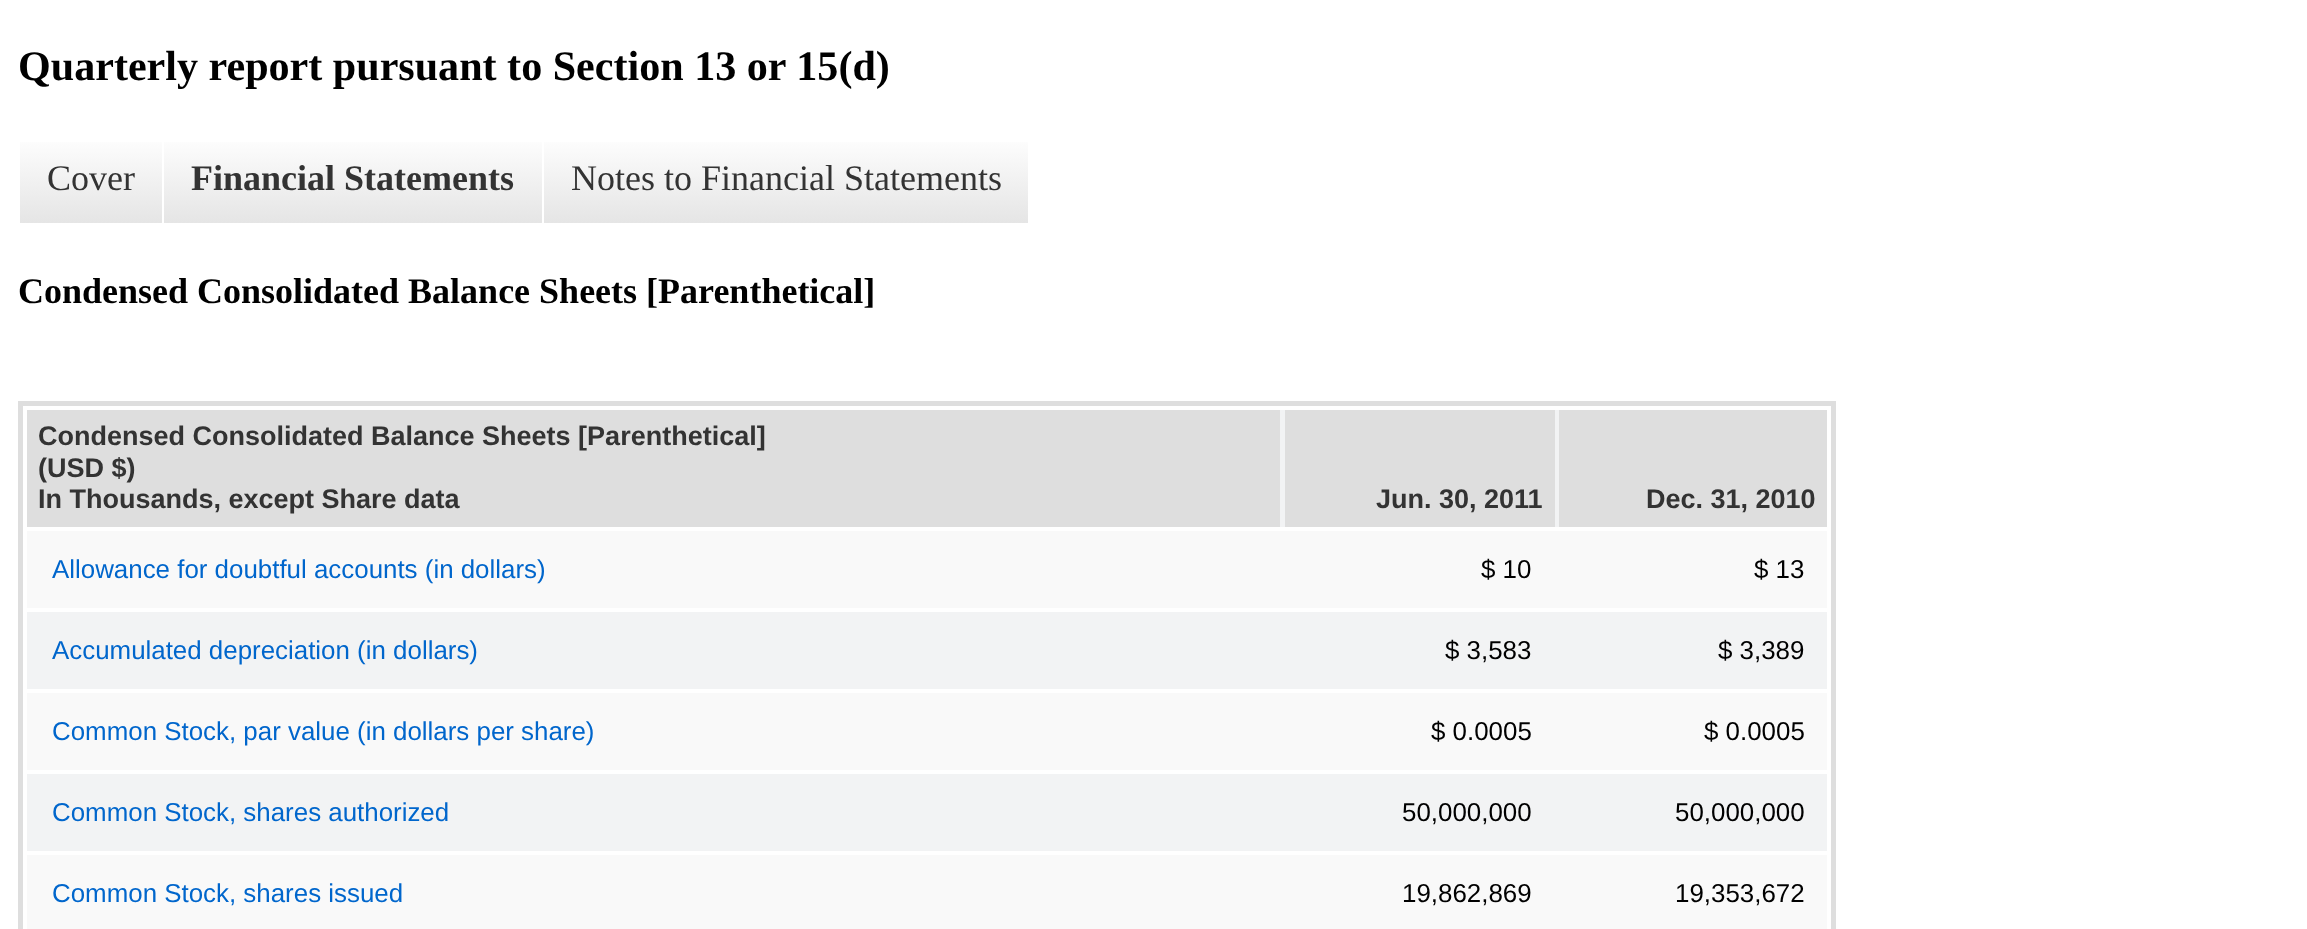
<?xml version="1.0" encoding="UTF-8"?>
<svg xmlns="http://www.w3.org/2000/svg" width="2307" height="929">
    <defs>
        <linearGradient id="g1" gradientUnits="userSpaceOnUse" x1="91" y1="133" x2="91" y2="223"><stop offset="0" stop-color="#FFFFFF"/><stop offset="1" stop-color="#E5E5E5"/></linearGradient>
        <linearGradient id="g2" gradientUnits="userSpaceOnUse" x1="353" y1="133" x2="353" y2="223"><stop offset="0" stop-color="#FFFFFF"/><stop offset="1" stop-color="#E5E5E5"/></linearGradient>
        <linearGradient id="g3" gradientUnits="userSpaceOnUse" x1="786" y1="133" x2="786" y2="223"><stop offset="0" stop-color="#FFFFFF"/><stop offset="1" stop-color="#E5E5E5"/></linearGradient>
    </defs>
    <rect width="100%" height="100%" fill="#FFFFFF"/>
    <text x="18" y="80" font-family="Liberation Serif" font-size="42.1" font-weight="700" fill="#000000">Quarterly report pursuant to Section 13 or 15(d)</text>
    <rect x="20" y="142" width="142" height="81" fill="url(#g1)"/>
    <text x="47" y="190" font-family="Liberation Serif" font-size="36" fill="#333333">Cover</text>
    <rect x="164" y="142" width="378" height="81" fill="url(#g2)"/>
    <text x="191" y="190" font-family="Liberation Serif" font-size="36" font-weight="700" fill="#333333">Financial Statements</text>
    <rect x="544" y="142" width="484" height="81" fill="url(#g3)"/>
    <text x="571" y="190" font-family="Liberation Serif" font-size="36" fill="#333333">Notes to Financial Statements</text>
    <text x="18" y="303" font-family="Liberation Serif" font-size="36" font-weight="700" fill="#000000">Condensed Consolidated Balance Sheets [Parenthetical]</text>
    <rect x="20.5" y="403.5" width="1813" height="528" fill="none" stroke="#DEDEDE" stroke-width="5"/>
    <rect x="1280" y="410" width="279" height="117" fill="#F2F3F4"/>
    <rect x="27" y="410" width="1253" height="117" fill="#DEDEDE"/>
    <text font-family="Liberation Sans" font-size="27" font-weight="700" fill="#333333">
        <tspan x="38" y="445">Condensed Consolidated Balance Sheets [Parenthetical]</tspan>
        <tspan x="38" y="477">(USD $)</tspan>
        <tspan x="38" y="508">In Thousands, except Share data</tspan>
    </text>
    <rect x="1285" y="410" width="270" height="117" fill="#DEDEDE"/>
    <text x="1376" y="508" font-family="Liberation Sans" font-size="27" font-weight="700" fill="#333333">Jun. 30, 2011</text>
    <rect x="1559" y="410" width="268" height="117" fill="#DEDEDE"/>
    <text x="1646" y="508" font-family="Liberation Sans" font-size="27" font-weight="700" fill="#333333">Dec. 31, 2010</text>
    <rect x="27" y="531" width="1800" height="77" fill="#F9F9F9"/>
    <text x="52" y="578" font-family="Liberation Sans" font-size="25.9" fill="#0066CC">Allowance for doubtful accounts (in dollars)</text>
    <text x="1481" y="578" font-family="Liberation Sans" font-size="25.9" fill="#000000">$ 10</text>
    <text x="1754" y="578" font-family="Liberation Sans" font-size="25.9" fill="#000000">$ 13</text>
    <rect x="27" y="612" width="1800" height="77" fill="#F2F3F4"/>
    <text x="52" y="659" font-family="Liberation Sans" font-size="25.9" fill="#0066CC">Accumulated depreciation (in dollars)</text>
    <text x="1445" y="659" font-family="Liberation Sans" font-size="25.9" fill="#000000">$ 3,583</text>
    <text x="1718" y="659" font-family="Liberation Sans" font-size="25.9" fill="#000000">$ 3,389</text>
    <rect x="27" y="693" width="1800" height="77" fill="#F9F9F9"/>
    <text x="52" y="740" font-family="Liberation Sans" font-size="25.9" fill="#0066CC">Common Stock, par value (in dollars per share)</text>
    <text x="1431" y="740" font-family="Liberation Sans" font-size="25.9" fill="#000000">$ 0.0005</text>
    <text x="1704" y="740" font-family="Liberation Sans" font-size="25.9" fill="#000000">$ 0.0005</text>
    <rect x="27" y="774" width="1800" height="77" fill="#F2F3F4"/>
    <text x="52" y="821" font-family="Liberation Sans" font-size="25.9" fill="#0066CC">Common Stock, shares authorized</text>
    <text x="1402" y="821" font-family="Liberation Sans" font-size="25.9" fill="#000000">50,000,000</text>
    <text x="1675" y="821" font-family="Liberation Sans" font-size="25.9" fill="#000000">50,000,000</text>
    <rect x="27" y="855" width="1800" height="74" fill="#F9F9F9"/>
    <text x="52" y="902" font-family="Liberation Sans" font-size="25.9" fill="#0066CC">Common Stock, shares issued</text>
    <text x="1402" y="902" font-family="Liberation Sans" font-size="25.9" fill="#000000">19,862,869</text>
    <text x="1675" y="902" font-family="Liberation Sans" font-size="25.9" fill="#000000">19,353,672</text>
</svg>
